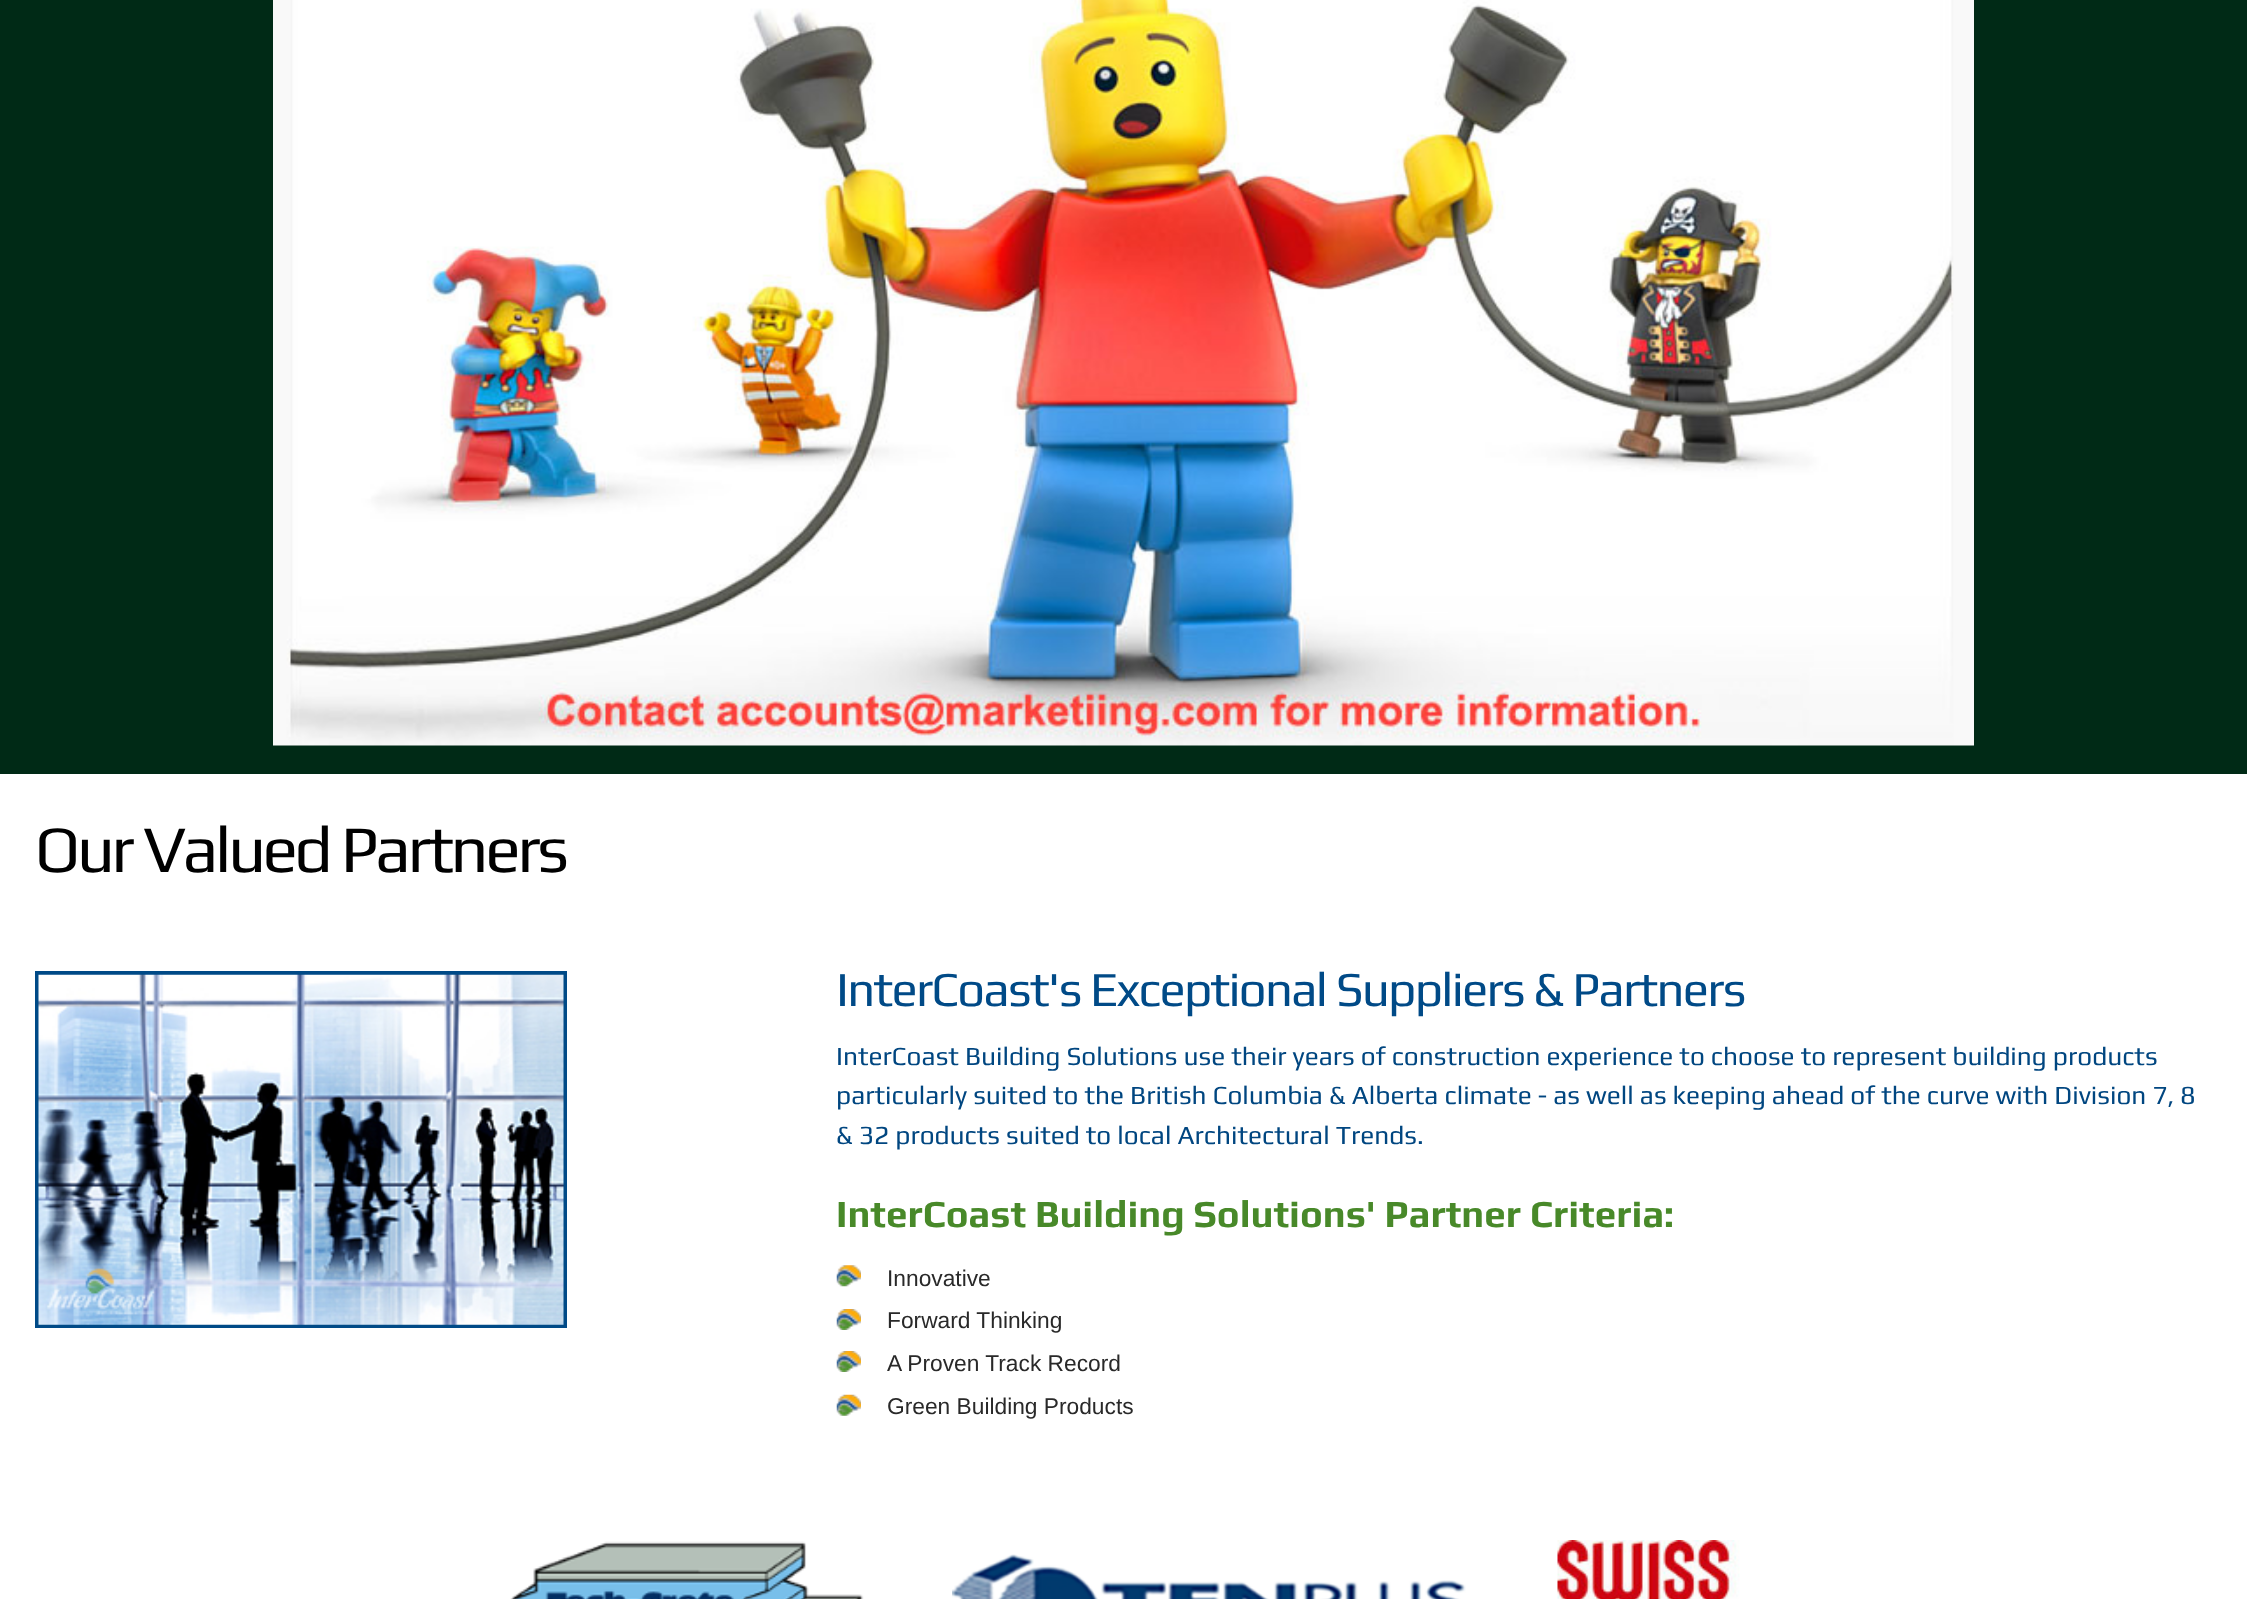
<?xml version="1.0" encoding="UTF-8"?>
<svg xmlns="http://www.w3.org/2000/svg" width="2247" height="1599">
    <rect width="100%" height="100%" fill="#002A16"/>
    <image x="273" y="0" width="1701" height="746" href="img_01.png"/>
    <rect x="0" y="774" width="2247" height="825" fill="#FFFFFF"/>
    <text x="35" y="872" font-family="Play" font-size="66.5" letter-spacing="-3.5" fill="#000000">Our Valued Partners</text>
    <rect x="37" y="973" width="528" height="353" fill="none" stroke="#004A87" stroke-width="4"/>
    <image x="38" y="974" width="526" height="351" href="img_02.png"/>
    <text x="836" y="1006" font-family="Play" font-size="49" letter-spacing="-1.75" fill="#004A87">InterCoast's Exceptional Suppliers &amp; Partners</text>
    <text font-family="Play" font-size="26.25" fill="#004680">
        <tspan x="836" y="1065">InterCoast Building Solutions use their years of construction experience to choose to represent building products</tspan>
        <tspan x="836" y="1104">particularly suited to the British Columbia &amp; Alberta climate - as well as keeping ahead of the curve with Division 7, 8</tspan>
        <tspan x="836" y="1144">&amp; 32 products suited to local Architectural Trends.</tspan>
    </text>
    <text x="836" y="1227" font-family="Play" font-size="38.5" font-weight="700" fill="#488929">InterCoast Building Solutions' Partner Criteria:</text>
    <image x="836" y="1265" width="25" height="22" href="img_03.png"/>
    <text x="887" y="1286" font-family="Liberation Sans" font-size="22.75" fill="#292929">Innovative</text>
    <image x="836" y="1309" width="25" height="21" href="img_04.png"/>
    <text x="887" y="1328" font-family="Liberation Sans" font-size="22.75" fill="#292929">Forward Thinking</text>
    <image x="836" y="1351" width="25" height="21" href="img_04.png"/>
    <text x="887" y="1371" font-family="Liberation Sans" font-size="22.75" fill="#292929">A Proven Track Record</text>
    <image x="836" y="1394" width="25" height="22" href="img_05.png"/>
    <text x="887" y="1414" font-family="Liberation Sans" font-size="22.75" fill="#292929">Green Building Products</text>
    <image x="510" y="1541" width="354" height="58" href="img_06.png"/>
    <image x="952" y="1554" width="514" height="45" href="img_07.png"/>
    <image x="1557" y="1540" width="183" height="59" href="img_08.png"/>
</svg>
